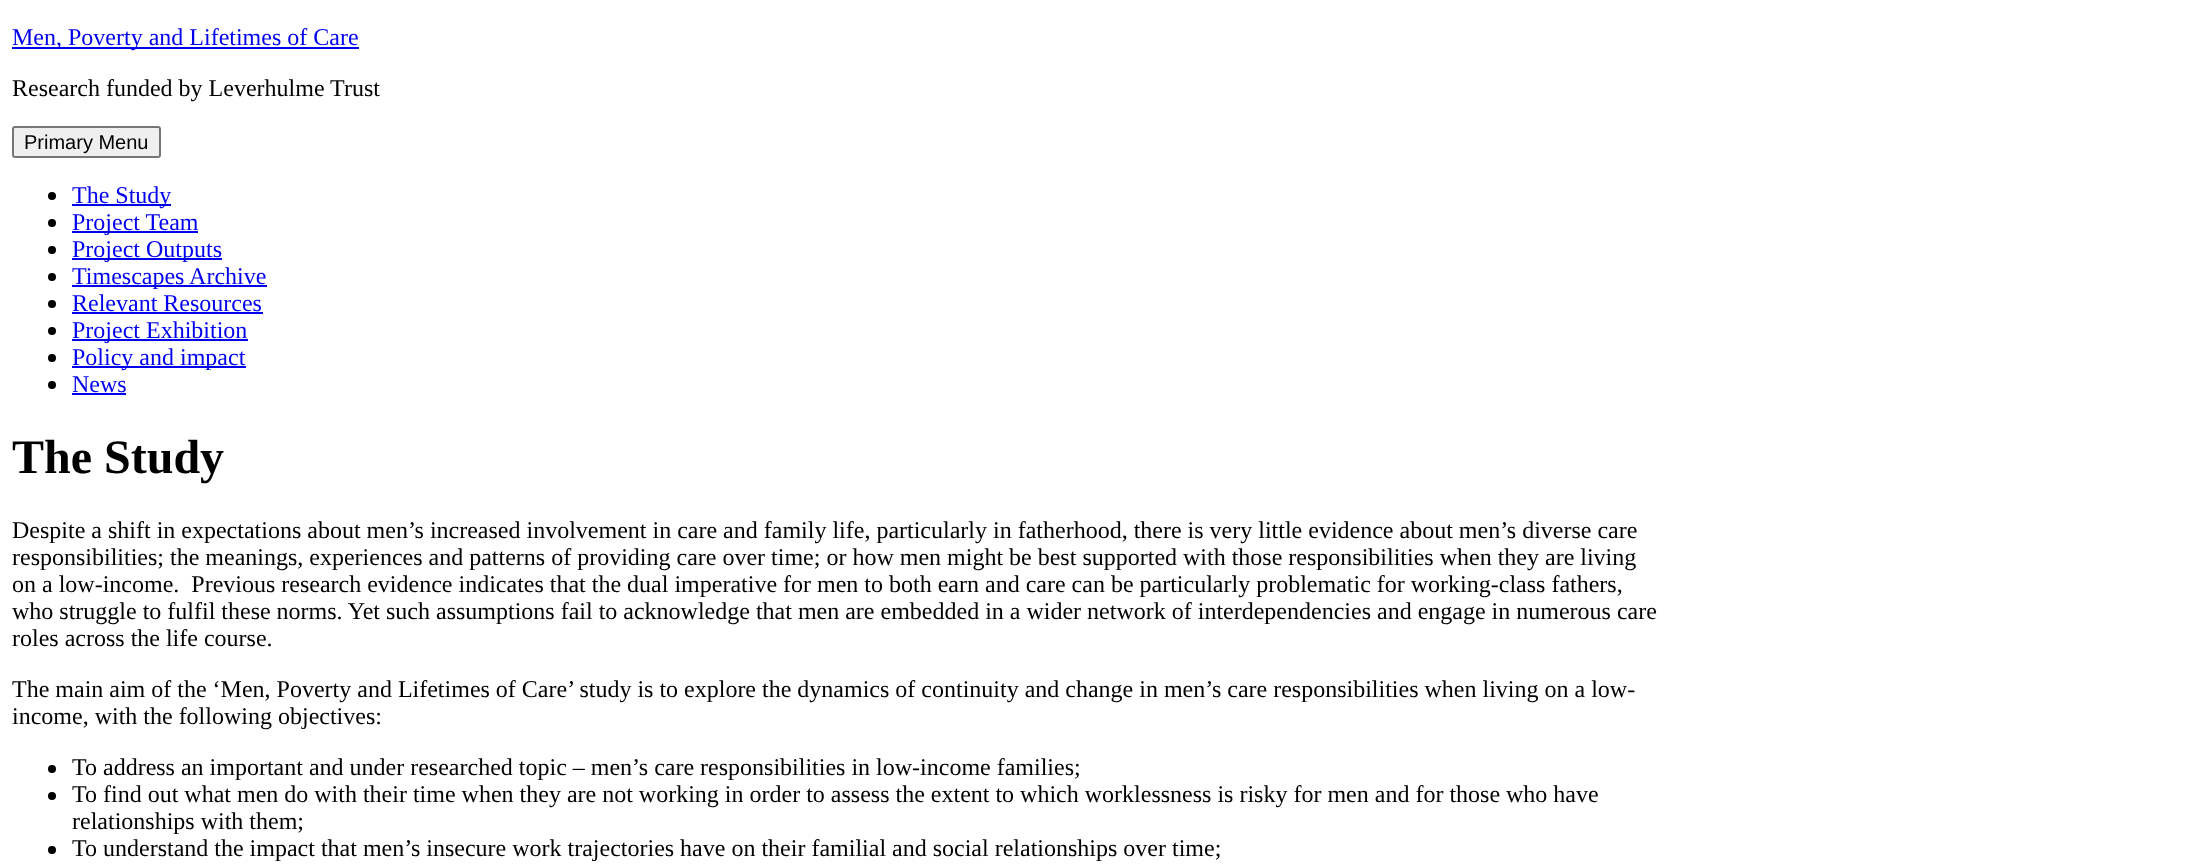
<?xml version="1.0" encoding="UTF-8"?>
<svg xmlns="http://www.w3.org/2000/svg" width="2203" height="867">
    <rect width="100%" height="100%" fill="#FFFFFF"/>
    <rect x="12" y="47" width="347" height="2" fill="#0000EE"/>
    <text x="12" y="45" font-family="Liberation Serif" font-size="24" fill="#0000EE">Men, Poverty and Lifetimes of Care</text>
    <text x="12" y="96" font-family="Liberation Serif" font-size="24" fill="#000000">Research funded by Leverhulme Trust</text>
    <rect x="13" y="127" width="147" height="30" rx="2" fill="#EFEFEF" stroke="#767676" stroke-width="2"/>
    <text x="24" y="149" font-family="Liberation Sans" font-size="20" fill="#000000">Primary Menu</text>
    <circle cx="52" cy="196" r="4" fill="#000000"/>
    <rect x="72" y="204" width="99" height="2" fill="#0000EE"/>
    <text x="72" y="203" font-family="Liberation Serif" font-size="24" fill="#0000EE">The Study</text>
    <circle cx="52" cy="223" r="4" fill="#000000"/>
    <rect x="72" y="231" width="126" height="2" fill="#0000EE"/>
    <text x="72" y="230" font-family="Liberation Serif" font-size="24" fill="#0000EE">Project Team</text>
    <circle cx="52" cy="250" r="4" fill="#000000"/>
    <rect x="72" y="258" width="150" height="2" fill="#0000EE"/>
    <text x="72" y="257" font-family="Liberation Serif" font-size="24" fill="#0000EE">Project Outputs</text>
    <circle cx="52" cy="277" r="4" fill="#000000"/>
    <rect x="72" y="285" width="195" height="2" fill="#0000EE"/>
    <text x="72" y="284" font-family="Liberation Serif" font-size="24" fill="#0000EE">Timescapes Archive</text>
    <circle cx="52" cy="304" r="4" fill="#000000"/>
    <text x="72" y="311" font-family="Liberation Serif" font-size="24" fill="#0000EE">Relevant Resources</text>
    <rect x="72" y="312" width="191" height="2" fill="#0000EE"/>
    <circle cx="52" cy="331" r="4" fill="#000000"/>
    <rect x="72" y="339" width="176" height="2" fill="#0000EE"/>
    <text x="72" y="338" font-family="Liberation Serif" font-size="24" fill="#0000EE">Project Exhibition</text>
    <circle cx="52" cy="358" r="4" fill="#000000"/>
    <rect x="72" y="366" width="174" height="2" fill="#0000EE"/>
    <text x="72" y="365" font-family="Liberation Serif" font-size="24" fill="#0000EE">Policy and impact</text>
    <circle cx="52" cy="385" r="4" fill="#000000"/>
    <text x="72" y="392" font-family="Liberation Serif" font-size="24" fill="#0000EE">News</text>
    <rect x="72" y="393" width="54" height="2" fill="#0000EE"/>
    <text x="12" y="473" font-family="Liberation Serif" font-size="48" font-weight="700" fill="#000000">The Study</text>
    <text font-family="Liberation Serif" font-size="24" fill="#000000" xml:space="preserve"><tspan x="12" y="538">Despite a shift in expectations about men’s increased involvement in care and family life, particularly in fatherhood, there is very little evidence about men’s diverse care</tspan><tspan x="12" y="565">responsibilities; the meanings, experiences and patterns of providing care over time; or how men might be best supported with those responsibilities when they are living</tspan><tspan x="12" y="592">on a low-income.  Previous research evidence indicates that the dual imperative for men to both earn and care can be particularly problematic for working-class fathers,</tspan><tspan x="12" y="619">who struggle to fulfil these norms. Yet such assumptions fail to acknowledge that men are embedded in a wider network of interdependencies and engage in numerous care</tspan><tspan x="12" y="646">roles across the life course.</tspan></text>
    <text font-family="Liberation Serif" font-size="24" fill="#000000">
        <tspan x="12" y="697">The main aim of the ‘Men, Poverty and Lifetimes of Care’ study is to explore the dynamics of continuity and change in men’s care responsibilities when living on a low-</tspan>
        <tspan x="12" y="724">income, with the following objectives:</tspan>
    </text>
    <circle cx="52" cy="769" r="4" fill="#000000"/>
    <text x="72" y="775" font-family="Liberation Serif" font-size="24" fill="#000000">To address an important and under researched topic – men’s care responsibilities in low-income families;</text>
    <circle cx="52" cy="796" r="4" fill="#000000"/>
    <text font-family="Liberation Serif" font-size="24" fill="#000000">
        <tspan x="72" y="802">To find out what men do with their time when they are not working in order to assess the extent to which worklessness is risky for men and for those who have</tspan>
        <tspan x="72" y="829">relationships with them;</tspan>
    </text>
    <circle cx="52" cy="850" r="4" fill="#000000"/>
    <text x="72" y="856" font-family="Liberation Serif" font-size="24" fill="#000000">To understand the impact that men’s insecure work trajectories have on their familial and social relationships over time;</text>
</svg>
